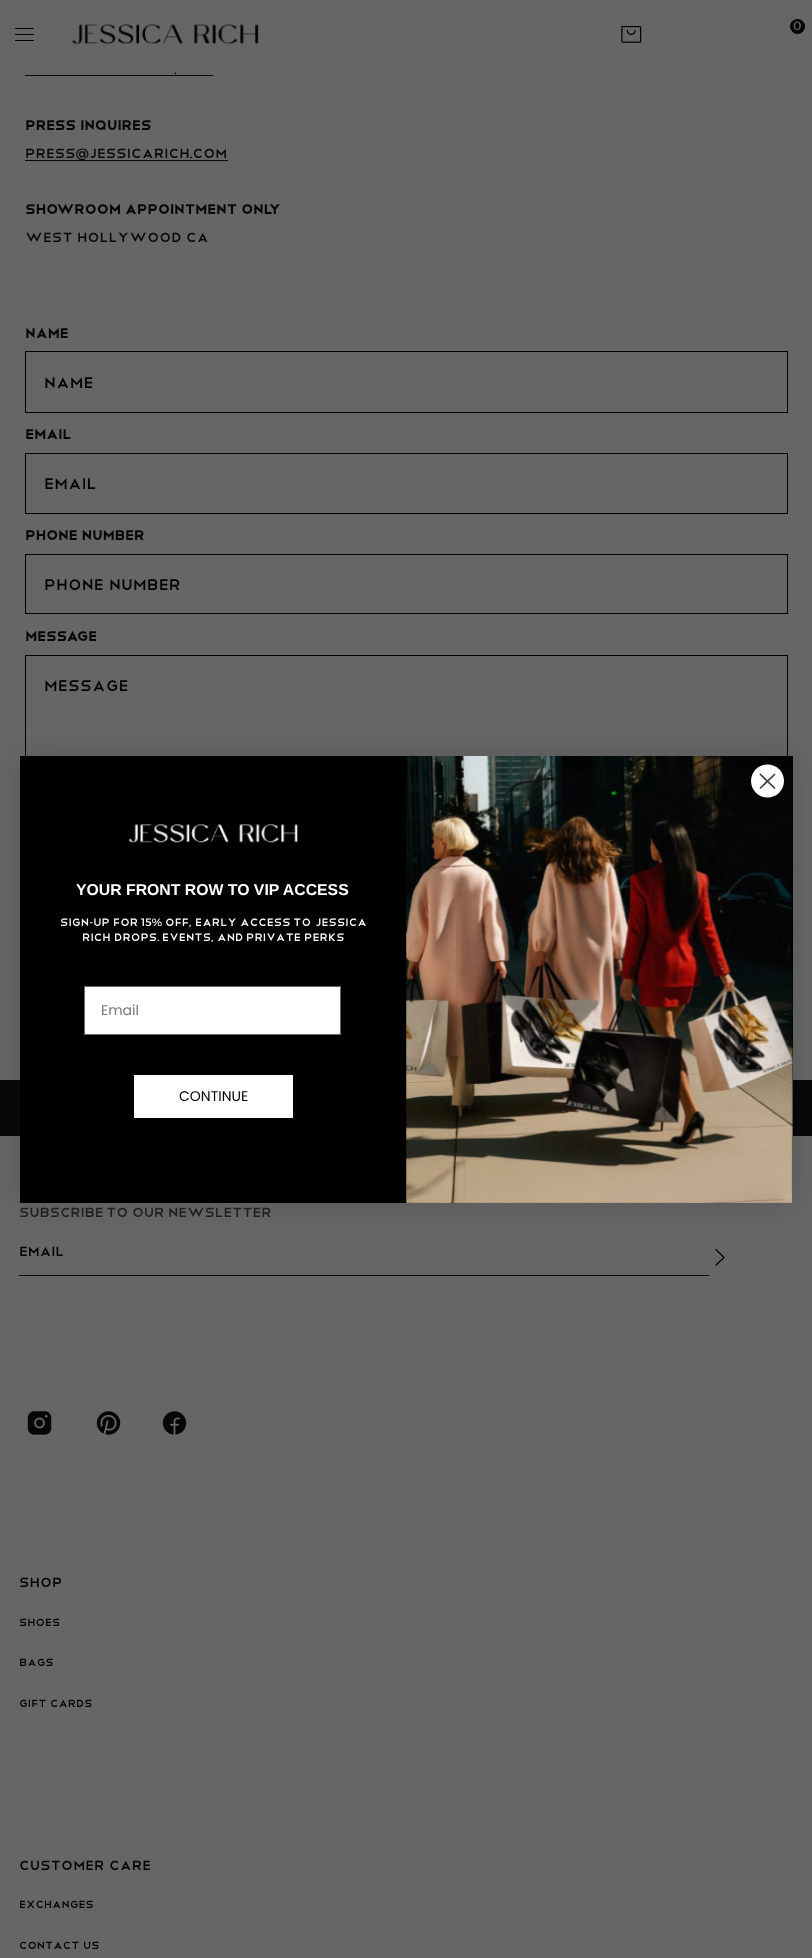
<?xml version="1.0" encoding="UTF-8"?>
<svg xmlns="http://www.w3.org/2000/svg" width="812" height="1958">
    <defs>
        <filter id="blur1" x="-50%" y="-200%" width="200%" height="500%"><feGaussianBlur stdDeviation="15"/></filter>
    </defs>
    <rect width="100%" height="100%" fill="#666666"/>
    <path d="M 15.5 34.5 H 33.5 M 15.5 28.5 H 33.5 M 15.5 40.5 H 33.5" fill="none" stroke="#000000" stroke-linecap="round" stroke-linejoin="round"/>
    <image x="72" y="24" width="187" height="21" href="img_01.png"/>
    <image x="621" y="26" width="21" height="17" href="img_02.png"/>
    <circle cx="797.5" cy="26.5" r="7.5" fill="#000000"/>
    <text x="793" y="30" font-family="Alexandria" font-size="12" fill="#666666">0</text>
    <text x="174" y="74" font-family="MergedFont" font-size="17.5" fill="#070707">.</text>
    <rect x="25" y="75" width="188" height="1" fill="#070707"/>
    <text x="25" y="130" font-family="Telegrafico" font-size="17.5" font-weight="700" fill="#070707">PRESS INQUIRES</text>
    <rect x="25" y="160" width="203" height="1" fill="#070707"/>
    <text x="25" y="158" font-family="MergedFont" font-size="17.5" fill="#070707">PRESS@JESSICARICH.COM</text>
    <text x="25" y="214" font-family="Telegrafico" font-size="17.5" font-weight="700" fill="#070707">SHOWROOM APPOINTMENT ONLY</text>
    <text x="25" y="242" font-family="MergedFont" font-size="17.5" fill="#070707">WEST</text>
    <text x="77" y="242" font-family="MergedFont" font-size="17.5" fill="#070707">HOLLYWOOD</text>
    <text x="186" y="242" font-family="MergedFont" font-size="17.5" fill="#070707">CA</text>
    <text x="25" y="338" font-family="Telegrafico" font-size="17.5" font-weight="700" fill="#070707">Name</text>
    <rect x="25.5" y="351.5" width="762" height="61" fill="none" stroke="#000000"/>
    <text x="44" y="388" font-family="MergedFont" font-size="20" fill="#000000">NAME</text>
    <text x="25" y="439" font-family="Telegrafico" font-size="17.5" font-weight="700" fill="#070707">Email</text>
    <rect x="25.5" y="453.5" width="762" height="60" fill="none" stroke="#000000"/>
    <text x="44" y="489" font-family="MergedFont" font-size="20" fill="#000000">EMAIL</text>
    <text x="25" y="540" font-family="Telegrafico" font-size="17.5" font-weight="700" fill="#070707">Phone number</text>
    <rect x="25.5" y="554.5" width="762" height="59" fill="none" stroke="#000000"/>
    <text x="44" y="590" font-family="MergedFont" font-size="20" fill="#000000">PHONE</text>
    <text x="109" y="590" font-family="MergedFont" font-size="20" fill="#000000">NUMBER</text>
    <text x="25" y="641" font-family="Telegrafico" font-size="17.5" font-weight="700" fill="#070707">Message</text>
    <rect x="25.5" y="655.5" width="762" height="313" fill="none" stroke="#000000"/>
    <text x="44" y="691" font-family="MergedFont" font-size="20" fill="#000000">MESSAGE</text>
    <rect x="0" y="1080" width="812" height="56" fill="#080808"/>
    <text x="19" y="1217" font-family="MergedFont" font-size="17.5" letter-spacing="-0.25" fill="#202020">Subscribe</text>
    <text x="106" y="1217" font-family="MergedFont" font-size="17.5" letter-spacing="-0.25" fill="#202020">to</text>
    <text x="132" y="1217" font-family="MergedFont" font-size="17.5" letter-spacing="-0.25" fill="#202020">Our</text>
    <text x="168" y="1217" font-family="MergedFont" font-size="17.5" letter-spacing="-0.25" fill="#202020">Newsletter</text>
    <rect x="19" y="1275" width="690" height="1" fill="#080808"/>
    <text x="19" y="1256" font-family="MergedFont" font-size="17.5" letter-spacing="-0.25" fill="#000000">EMAIL</text>
    <path d="M 716 1265 L 724 1257.5 L 716 1249.5" fill="none" stroke="#000000" stroke-width="1.2" stroke-linecap="round" stroke-linejoin="round"/>
    <image x="27" y="1411" width="25" height="24" href="img_03.png"/>
    <image x="96" y="1411" width="25" height="24" href="img_04.png"/>
    <image x="162" y="1411" width="25" height="24" href="img_05.png"/>
    <text x="19" y="1587" font-family="MergedFont" font-size="17.5" fill="#000000">Shop</text>
    <text x="19" y="1626" font-family="MergedFont" font-size="13.75" fill="#000000">Shoes</text>
    <text x="19" y="1666" font-family="MergedFont" font-size="13.75" fill="#000000">Bags</text>
    <text x="19" y="1707" font-family="MergedFont" font-size="13.75" fill="#000000">Gift</text>
    <text x="50" y="1707" font-family="MergedFont" font-size="13.75" fill="#000000">Cards</text>
    <text x="19" y="1870" font-family="MergedFont" font-size="17.5" fill="#000000">Customer</text>
    <text x="109" y="1870" font-family="MergedFont" font-size="17.5" fill="#000000">Care</text>
    <text x="19" y="1908" font-family="MergedFont" font-size="13.75" fill="#000000">EXCHANGES</text>
    <text x="19" y="1949" font-family="MergedFont" font-size="13.75" fill="#000000">CONTACT</text>
    <text x="83" y="1949" font-family="MergedFont" font-size="13.75" fill="#000000">US</text>
    <rect x="20" y="756" width="773" height="447" fill="#000000" fill-opacity="0.15" filter="url(#blur1)"/>
    <rect x="20" y="756" width="773" height="447" fill="#000000"/>
    <image x="406" y="756" width="387" height="447" href="img_07.png"/>
    <circle cx="767.5" cy="781" r="16.5" fill="#FFFFFF"/>
    <path d="M 760.5 774.5 L 774.5 788 M 760.5 788 L 774.5 774.5 Z" fill="none" stroke="#373F47" stroke-width="1.7" stroke-linecap="round" stroke-linejoin="round"/>
    <image x="128" y="824" width="170" height="19" href="img_06.png"/>
    <text x="76" y="895" font-family="Liberation Sans" font-size="15.8" font-weight="700" fill="#FFFFFF">YOUR FRONT ROW TO VIP ACCESS</text>
    <text x="60" y="926" font-family="MergedFont" font-size="14" fill="#FFFFFF">SIGN-UP</text>
    <text x="113" y="926" font-family="MergedFont" font-size="14" fill="#FFFFFF">FOR</text>
    <text x="141" y="926" font-family="MergedFont" font-size="14" fill="#FFFFFF">15%</text>
    <text x="165" y="926" font-family="MergedFont" font-size="14" fill="#FFFFFF">OFF,</text>
    <text x="195" y="926" font-family="MergedFont" font-size="14" fill="#FFFFFF">EARLY</text>
    <text x="240" y="926" font-family="MergedFont" font-size="14" fill="#FFFFFF">ACCESS</text>
    <text x="293" y="926" font-family="MergedFont" font-size="14" fill="#FFFFFF">TO</text>
    <text x="315" y="926" font-family="MergedFont" font-size="14" fill="#FFFFFF">JESSICA</text>
    <text x="82" y="941" font-family="MergedFont" font-size="14" fill="#FFFFFF">RICH</text>
    <text x="114" y="941" font-family="MergedFont" font-size="14" fill="#FFFFFF">DROPS.</text>
    <text x="162" y="941" font-family="MergedFont" font-size="14" fill="#FFFFFF">EVENTS,</text>
    <text x="217" y="941" font-family="MergedFont" font-size="14" fill="#FFFFFF">AND</text>
    <text x="246" y="941" font-family="MergedFont" font-size="14" fill="#FFFFFF">PRIVATE</text>
    <text x="304" y="941" font-family="MergedFont" font-size="14" fill="#FFFFFF">PERKS</text>
    <rect x="84.5" y="986.5" width="256" height="48" fill="#FFFFFF" stroke="#606A72"/>
    <text x="101" y="1015" font-family="Poppins" font-size="14" fill="#767676">Email</text>
    <rect x="134" y="1075" width="159" height="43" fill="#FFFFFF"/>
    <text x="179" y="1101" font-family="Poppins" font-size="14" fill="#000000">CONTINUE</text>
</svg>
